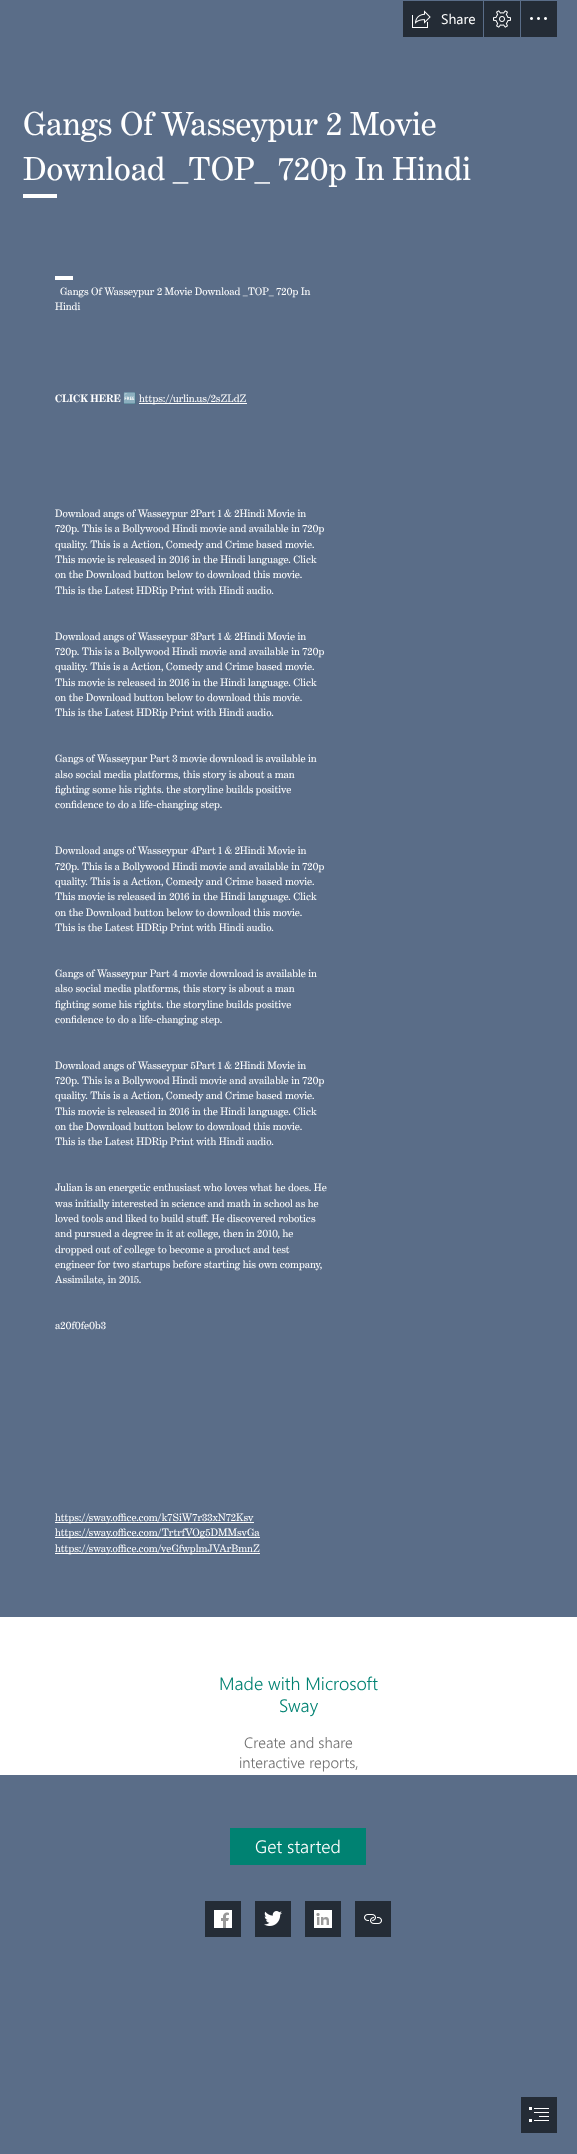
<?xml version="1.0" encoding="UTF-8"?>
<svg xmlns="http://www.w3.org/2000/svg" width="577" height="2154">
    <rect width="100%" height="100%" fill="#5A6D88"/>
    <rect x="403" y="1" width="80" height="36" fill="#242C36"/>
    <image x="412" y="10" width="19" height="18" href="img_01.png"/>
    <text x="441" y="24" font-family="Segoe UI" font-size="14" fill="#FFFFFF">Share</text>
    <rect x="484" y="1" width="36" height="36" fill="#242C36"/>
    <image x="493" y="10" width="18" height="18" href="img_02.png"/>
    <rect x="521" y="1" width="36" height="36" fill="#242C36"/>
    <image x="530" y="17" width="17" height="3" href="img_03.png"/>
    <text font-family="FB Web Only" font-size="33.75" fill="#FFFFFF">
        <tspan x="23" y="135">Gangs Of Wasseypur 2 Movie</tspan>
        <tspan x="23" y="180">Download _TOP_ 720p In Hindi</tspan>
    </text>
    <rect x="23" y="194" width="34" height="4" fill="#FFFFFF"/>
    <rect x="55" y="276" width="18" height="4" fill="#FFFFFF"/>
    <text x="60" y="295" font-family="FB Web Only" font-size="10.8" fill="#FFFFFF">Gangs Of Wasseypur 2 Movie Download _TOP_ 720p In</text>
    <text x="55" y="310" font-family="FB Web Only" font-size="10.8" fill="#FFFFFF">Hindi</text>
    <text x="55" y="402" font-family="FB Web Only" font-size="10.8" font-weight="700" fill="#FFFFFF">CLICK HERE</text>
    <text x="123" y="402" font-family="Noto Color Emoji" font-size="10.8" fill="#FFFFFF">🆓</text>
    <rect x="139" y="403" width="108" height="1" fill="#FFFFFF"/>
    <text x="139" y="402" font-family="FB Web Only" font-size="10.8" fill="#FFFFFF">https://urlin.us/2sZLdZ</text>
    <text font-family="FB Web Only" font-size="10.8" fill="#FFFFFF">
        <tspan x="55" y="517">Download angs of Wasseypur 2Part 1 &amp; 2Hindi Movie in</tspan>
        <tspan x="55" y="532">720p. This is a Bollywood Hindi movie and available in 720p</tspan>
        <tspan x="55" y="548">quality. This is a Action, Comedy and Crime based movie.</tspan>
        <tspan x="55" y="563">This movie is released in 2016 in the Hindi language. Click</tspan>
        <tspan x="55" y="578">on the Download button below to download this movie.</tspan>
        <tspan x="55" y="594">This is the Latest HDRip Print with Hindi audio.</tspan>
    </text>
    <text font-family="FB Web Only" font-size="10.8" fill="#FFFFFF">
        <tspan x="55" y="640">Download angs of Wasseypur 3Part 1 &amp; 2Hindi Movie in</tspan>
        <tspan x="55" y="655">720p. This is a Bollywood Hindi movie and available in 720p</tspan>
        <tspan x="55" y="670">quality. This is a Action, Comedy and Crime based movie.</tspan>
        <tspan x="55" y="686">This movie is released in 2016 in the Hindi language. Click</tspan>
        <tspan x="55" y="701">on the Download button below to download this movie.</tspan>
        <tspan x="55" y="716">This is the Latest HDRip Print with Hindi audio.</tspan>
    </text>
    <text font-family="FB Web Only" font-size="10.8" fill="#FFFFFF">
        <tspan x="55" y="762">Gangs of Wasseypur Part 3 movie download is available in</tspan>
        <tspan x="55" y="778">also social media platforms, this story is about a man</tspan>
        <tspan x="55" y="793">fighting some his rights. the storyline builds positive</tspan>
        <tspan x="55" y="808">confidence to do a life-changing step.</tspan>
    </text>
    <text font-family="FB Web Only" font-size="10.8" fill="#FFFFFF">
        <tspan x="55" y="854">Download angs of Wasseypur 4Part 1 &amp; 2Hindi Movie in</tspan>
        <tspan x="55" y="870">720p. This is a Bollywood Hindi movie and available in 720p</tspan>
        <tspan x="55" y="885">quality. This is a Action, Comedy and Crime based movie.</tspan>
        <tspan x="55" y="900">This movie is released in 2016 in the Hindi language. Click</tspan>
        <tspan x="55" y="916">on the Download button below to download this movie.</tspan>
        <tspan x="55" y="931">This is the Latest HDRip Print with Hindi audio.</tspan>
    </text>
    <text font-family="FB Web Only" font-size="10.8" fill="#FFFFFF">
        <tspan x="55" y="977">Gangs of Wasseypur Part 4 movie download is available in</tspan>
        <tspan x="55" y="992">also social media platforms, this story is about a man</tspan>
        <tspan x="55" y="1008">fighting some his rights. the storyline builds positive</tspan>
        <tspan x="55" y="1023">confidence to do a life-changing step.</tspan>
    </text>
    <text font-family="FB Web Only" font-size="10.8" fill="#FFFFFF">
        <tspan x="55" y="1069">Download angs of Wasseypur 5Part 1 &amp; 2Hindi Movie in</tspan>
        <tspan x="55" y="1084">720p. This is a Bollywood Hindi movie and available in 720p</tspan>
        <tspan x="55" y="1099">quality. This is a Action, Comedy and Crime based movie.</tspan>
        <tspan x="55" y="1115">This movie is released in 2016 in the Hindi language. Click</tspan>
        <tspan x="55" y="1130">on the Download button below to download this movie.</tspan>
        <tspan x="55" y="1145">This is the Latest HDRip Print with Hindi audio.</tspan>
    </text>
    <text font-family="FB Web Only" font-size="10.8" fill="#FFFFFF">
        <tspan x="55" y="1191">Julian is an energetic enthusiast who loves what he does. He</tspan>
        <tspan x="55" y="1207">was initially interested in science and math in school as he</tspan>
        <tspan x="55" y="1222">loved tools and liked to build stuff. He discovered robotics</tspan>
        <tspan x="55" y="1237">and pursued a degree in it at college, then in 2010, he</tspan>
        <tspan x="55" y="1253">dropped out of college to become a product and test</tspan>
        <tspan x="55" y="1268">engineer for two startups before starting his own company,</tspan>
        <tspan x="55" y="1283">Assimilate, in 2015.</tspan>
    </text>
    <text x="55" y="1329" font-family="FB Web Only" font-size="10.8" fill="#FFFFFF">a20f0fe0b3</text>
    <rect x="55" y="1522" width="199" height="1" fill="#FFFFFF"/>
    <text x="55" y="1521" font-family="FB Web Only" font-size="10.8" fill="#FFFFFF">https://sway.office.com/k7SiW7r33xN72Ksv</text>
    <rect x="55" y="1537" width="205" height="1" fill="#FFFFFF"/>
    <text x="55" y="1536" font-family="FB Web Only" font-size="10.8" fill="#FFFFFF">https://sway.office.com/TrtrfVOg5DMMsvGa</text>
    <rect x="55" y="1553" width="205" height="1" fill="#FFFFFF"/>
    <text x="55" y="1552" font-family="FB Web Only" font-size="10.8" fill="#FFFFFF">https://sway.office.com/veGfwplmJVArBmnZ</text>
    <rect x="0" y="1617" width="577" height="158" fill="#FFFFFF"/>
    <text x="219" y="1690" font-family="Segoe UI" font-size="18" font-weight="300" fill="#008272">Made with Microsoft</text>
    <text x="279" y="1712" font-family="Segoe UI" font-size="18" font-weight="300" fill="#008272">Sway</text>
    <text x="244" y="1748" font-family="Segoe UI" font-size="15" font-weight="300" fill="#6E6E6E">Create and share</text>
    <text x="239" y="1768" font-family="Segoe UI" font-size="15" font-weight="300" fill="#6E6E6E">interactive reports,</text>
    <rect x="230" y="1828" width="136" height="37" fill="#008272"/>
    <text x="255" y="1853" font-family="Segoe UI" font-size="18" font-weight="300" fill="#FFFFFF">Get started</text>
    <rect x="205" y="1901" width="36" height="36" fill="#242C36"/>
    <rect x="214" y="1910" width="18" height="18" fill="#FFFFFF"/>
    <image x="221" y="1912" width="8" height="16" href="img_04.png"/>
    <rect x="255" y="1901" width="36" height="36" fill="#242C36"/>
    <image x="264" y="1911" width="18" height="15" href="img_05.png"/>
    <rect x="305" y="1901" width="36" height="36" fill="#242C36"/>
    <rect x="314" y="1910" width="18" height="18" fill="#FFFFFF"/>
    <image x="316" y="1913" width="13" height="12" href="img_06.png"/>
    <rect x="355" y="1901" width="36" height="36" fill="#242C36"/>
    <image x="364" y="1914" width="18" height="10" href="img_07.png"/>
    <rect x="521" y="2097" width="36" height="36" fill="#242C36"/>
    <image x="529" y="2107" width="20" height="15" href="img_08.png"/>
</svg>
